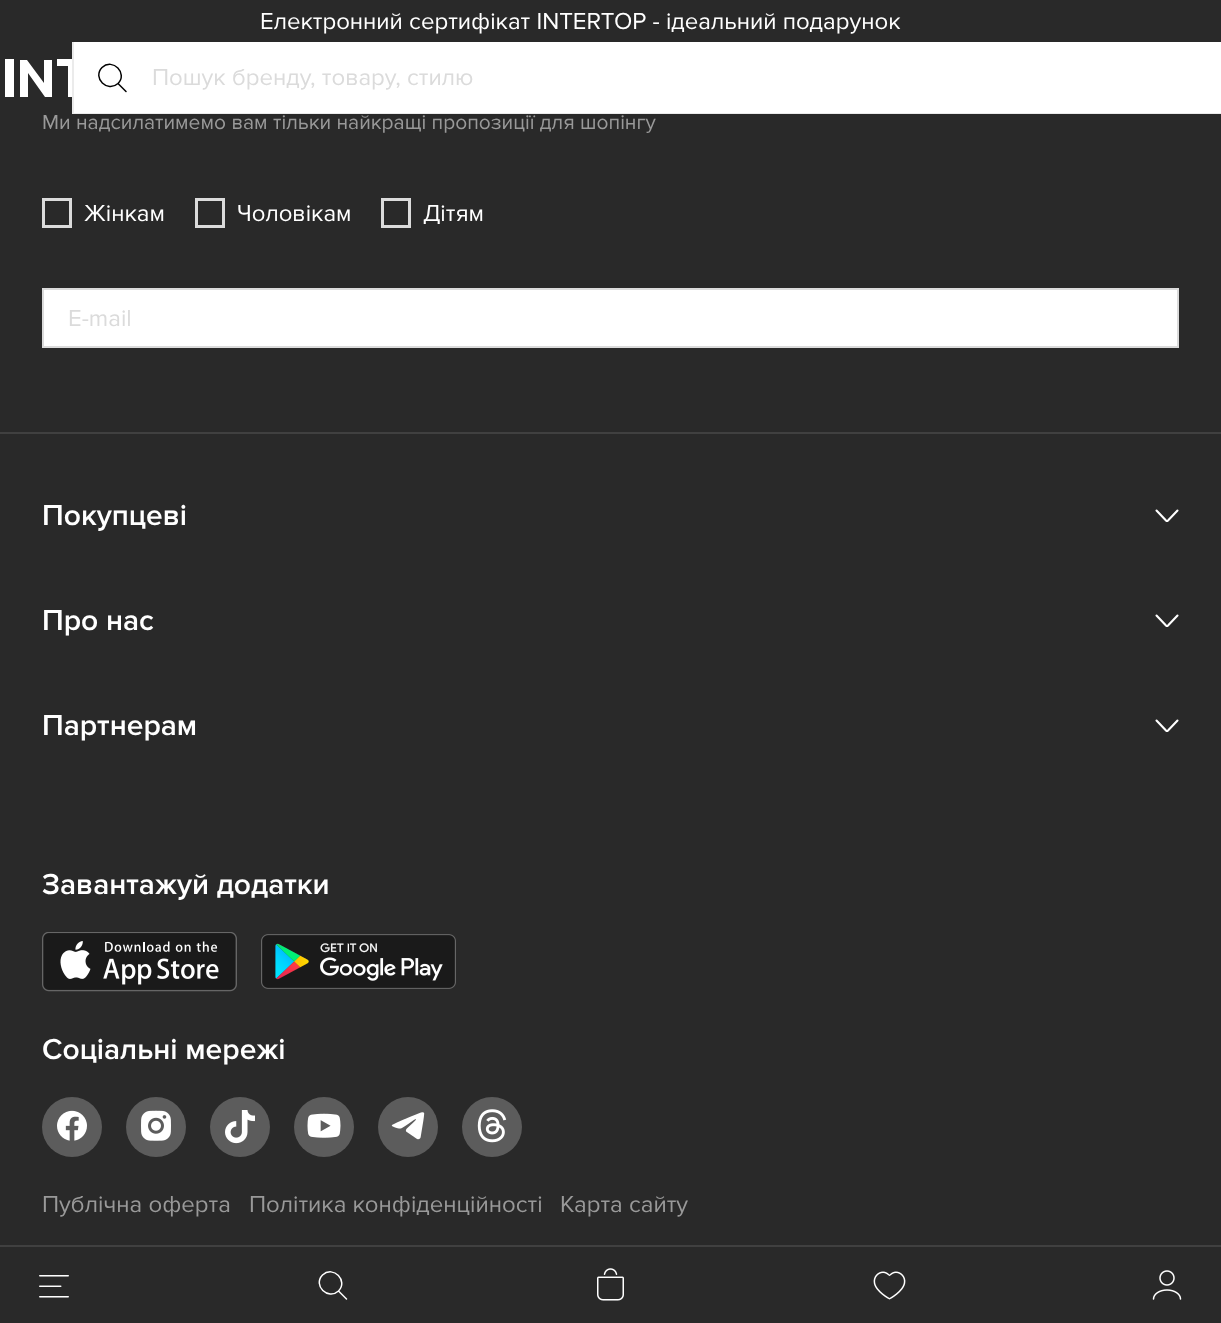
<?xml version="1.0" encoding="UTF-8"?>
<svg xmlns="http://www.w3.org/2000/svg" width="1221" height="1323">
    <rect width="100%" height="100%" fill="#292929"/>
    <text x="260" y="29" font-family="Proxima Nova" font-size="24" fill="#FFFFFF">Електронний сертифікат INTERTOP - ідеальний подарунок</text>
    <rect x="5" y="59" width="67" height="38" fill="#FFFFFF"/>
    <path d="M 68 97 V 66 H 57 V 59 H 72 V 42 H 0 V 114 H 72 V 97 Z M 14 97 H 5 V 59 H 14 Z M 52 97 H 45 L 28 73 V 97 H 20 V 60 H 27 L 44 83 V 60 H 52 Z" fill="#292929"/>
    <rect x="74" y="42" width="1147" height="71" fill="#FFFFFF"/>
    <rect x="72" y="113" width="1149" height="1" fill="#EBEBEB"/>
    <rect x="72" y="42" width="2" height="72" fill="#EBEBEB"/>
    <path d="M 118 83.5 C 128 73.5 113 57.5 102 67.5 C 92 78 107.5 93 118 83.5 Z M 118 83.5 L 126 91.5" fill="none" stroke="#000000" stroke-width="1.5" stroke-linecap="round"/>
    <text x="152" y="85" font-family="Proxima Nova" font-size="24" fill="#DBDBDB">Пошук бренду, товару, стилю</text>
    <rect x="0" y="432" width="1221" height="2" fill="#404040"/>
    <text x="42" y="129" font-family="Proxima Nova" font-size="21" fill="#999999">Ми надсилатимемо вам тільки найкращі пропозиції для шопінгу</text>
    <rect x="43.5" y="199.5" width="27" height="27" fill="none" stroke="#DBDBDB" stroke-width="3"/>
    <text x="84" y="221" font-family="Proxima Nova" font-size="24" fill="#FFFFFF">Жінкам</text>
    <rect x="196.5" y="199.5" width="27" height="27" fill="none" stroke="#DBDBDB" stroke-width="3"/>
    <text x="237" y="221" font-family="Proxima Nova" font-size="24" fill="#FFFFFF">Чоловікам</text>
    <rect x="382.5" y="199.5" width="27" height="27" fill="none" stroke="#DBDBDB" stroke-width="3"/>
    <text x="423" y="221" font-family="Proxima Nova" font-size="24" fill="#FFFFFF">Дітям</text>
    <rect x="43" y="289" width="1135" height="58" fill="#FFFFFF" stroke="#DBDBDB" stroke-width="2"/>
    <text x="68" y="326" font-family="Proxima Nova" font-size="24" fill="#DBDBDB">E-mail</text>
    <text x="42" y="525" font-family="Proxima Nova" font-size="30" font-weight="600" fill="#FFFFFF">Покупцеві</text>
    <path d="M 1177.5 510.5 L 1168 520.5 C 1167.5 521 1166.5 521 1166 520.5 L 1156.5 510.5" fill="none" stroke="#FFFFFF" stroke-width="2.1" stroke-linecap="round"/>
    <text x="42" y="630" font-family="Proxima Nova" font-size="30" font-weight="600" fill="#FFFFFF">Про нас</text>
    <path d="M 1177.5 615.5 L 1168 625.5 C 1167.5 626 1166.5 626 1166 625.5 L 1156.5 615.5" fill="none" stroke="#FFFFFF" stroke-width="2.1" stroke-linecap="round"/>
    <text x="42" y="735" font-family="Proxima Nova" font-size="30" font-weight="600" fill="#FFFFFF">Партнерам</text>
    <path d="M 1177.5 720.5 L 1168 730.5 C 1167.5 731 1166.5 731 1166 730.5 L 1156.5 720.5" fill="none" stroke="#FFFFFF" stroke-width="2.1" stroke-linecap="round"/>
    <text x="42" y="894" font-family="Proxima Nova" font-size="30" font-weight="600" fill="#FFFFFF">Завантажуй додатки</text>
    <image x="42" y="932" width="195" height="60" href="img_01.png"/>
    <image x="261" y="934" width="195" height="55" href="img_02.png"/>
    <text x="42" y="1059" font-family="Proxima Nova" font-size="30" font-weight="600" fill="#FFFFFF">Соціальні мережі</text>
    <circle cx="72" cy="1127" r="30" fill="#5C5C5C"/>
    <image x="57" y="1110" width="30" height="31" href="img_03.png"/>
    <circle cx="156" cy="1127" r="30" fill="#5C5C5C"/>
    <image x="141" y="1110" width="30" height="31" href="img_04.png"/>
    <circle cx="240" cy="1127" r="30" fill="#5C5C5C"/>
    <image x="225" y="1110" width="30" height="34" href="img_05.png"/>
    <circle cx="324" cy="1127" r="30" fill="#5C5C5C"/>
    <image x="307" y="1113" width="34" height="25" href="img_06.png"/>
    <circle cx="408" cy="1127" r="30" fill="#5C5C5C"/>
    <image x="391" y="1112" width="34" height="28" href="img_07.png"/>
    <circle cx="492" cy="1127" r="30" fill="#5C5C5C"/>
    <image x="477" y="1109" width="30" height="34" href="img_08.png"/>
    <text x="42" y="1212" font-family="Proxima Nova" font-size="24" fill="#999999">Публічна оферта</text>
    <text x="249" y="1212" font-family="Proxima Nova" font-size="24" fill="#999999">Політика конфіденційності</text>
    <text x="560" y="1212" font-family="Proxima Nova" font-size="24" fill="#999999">Карта сайту</text>
    <rect x="0" y="1245" width="1221" height="2" fill="#404040"/>
    <image x="39" y="1275" width="30" height="23" href="img_09.png"/>
    <path d="M 338.5 1291 C 348.5 1281 333.5 1265 322.5 1275 C 312.5 1285.5 328 1300.5 338.5 1291 Z M 338.5 1291 L 346.5 1299" fill="none" stroke="#FFFFFF" stroke-width="1.5" stroke-linecap="round"/>
    <image x="597" y="1268" width="27" height="33" href="img_10.png"/>
    <image x="873" y="1271" width="33" height="29" href="img_11.png"/>
    <image x="1152" y="1270" width="30" height="30" href="img_12.png"/>
</svg>
